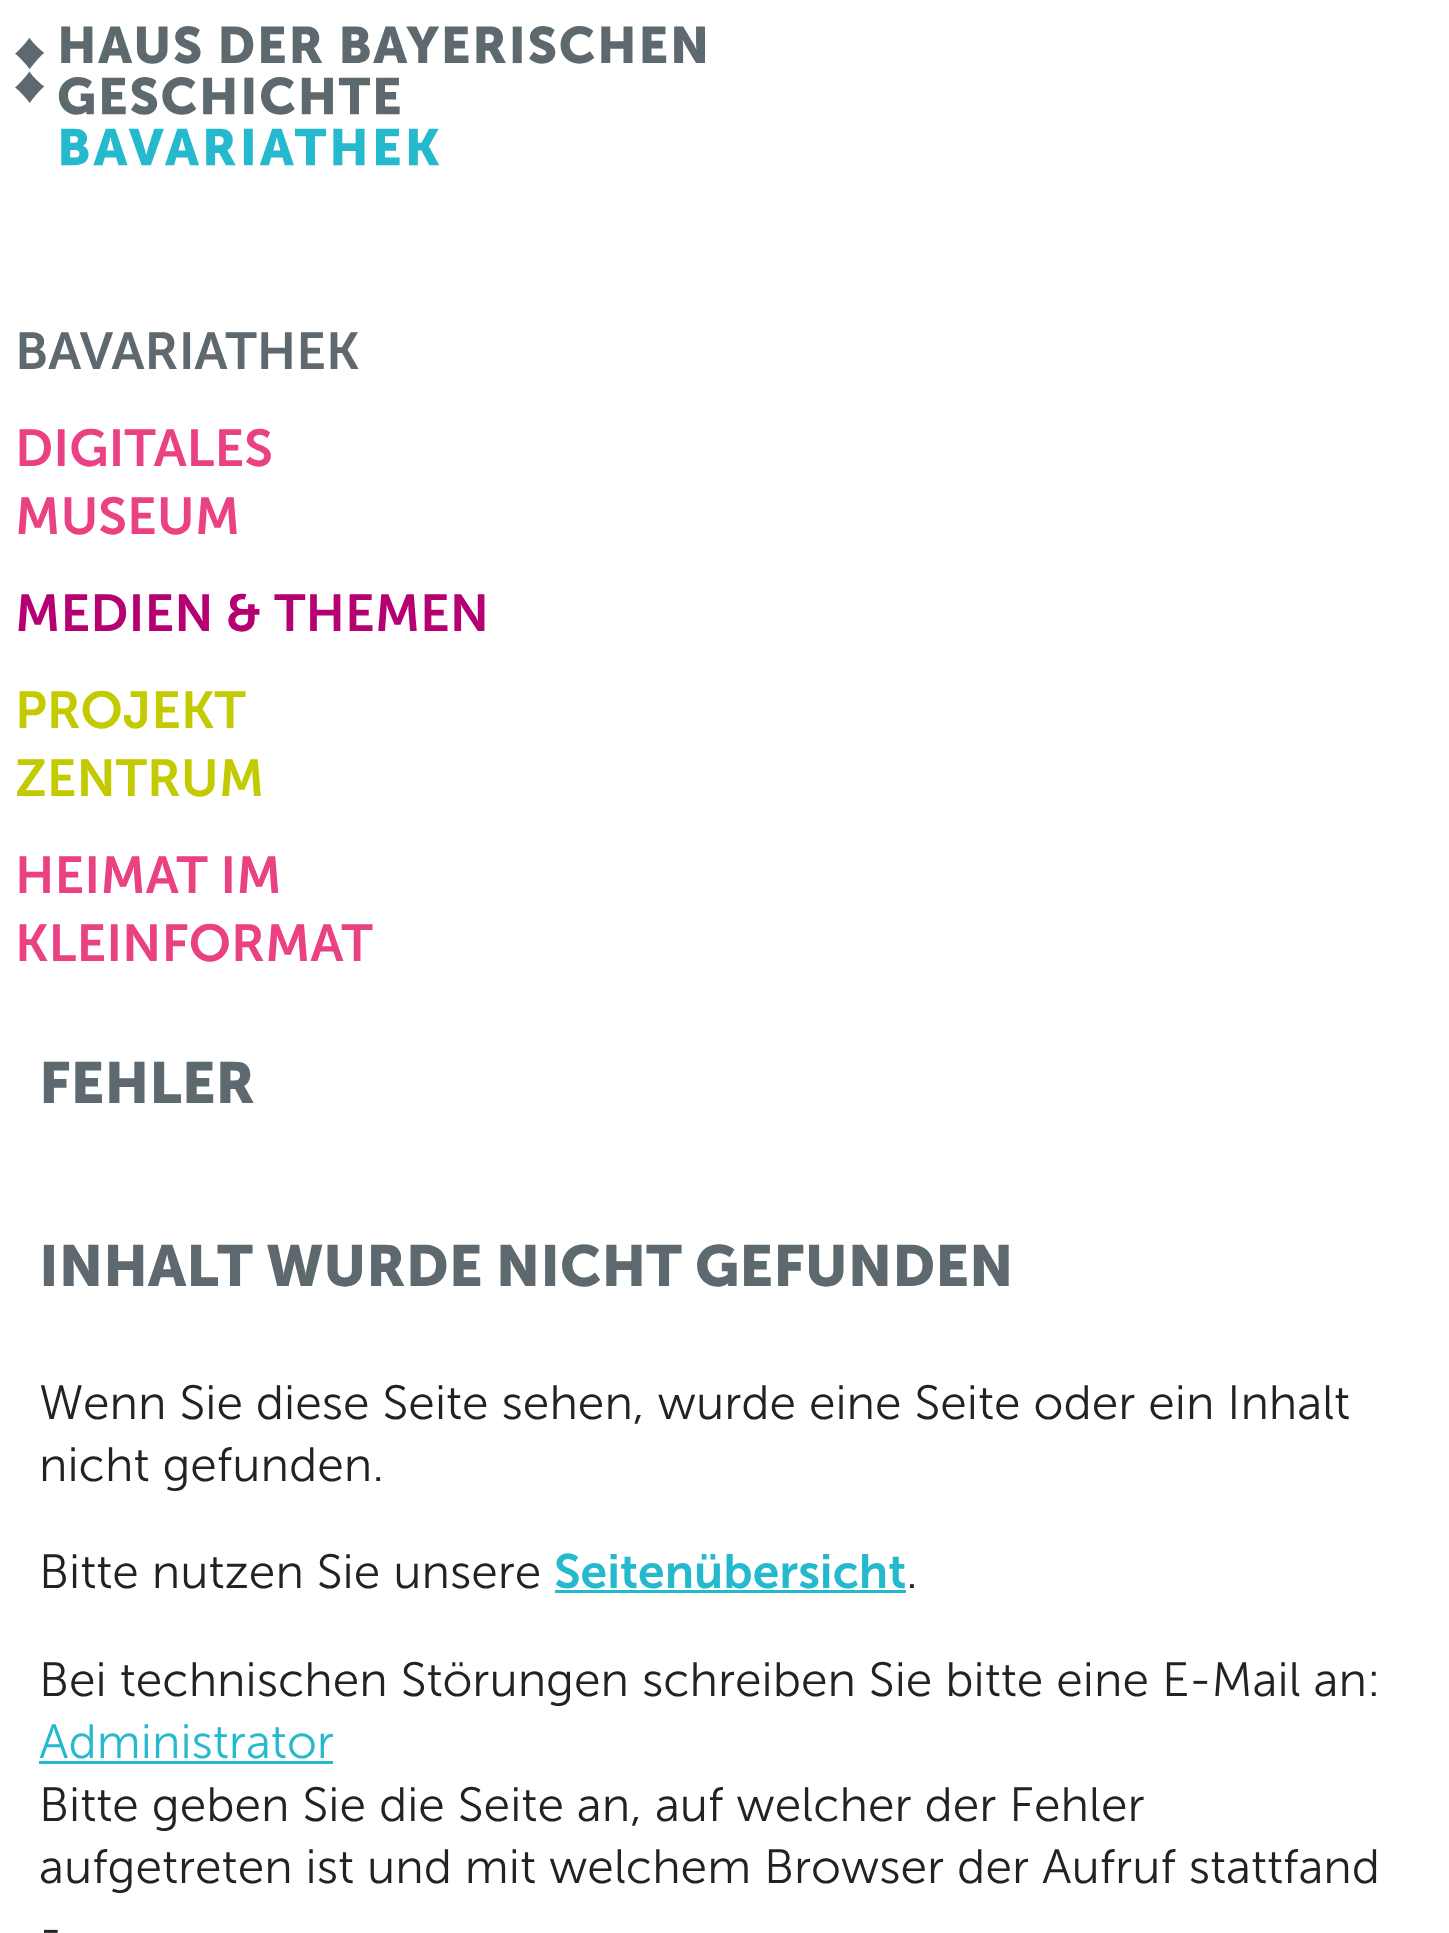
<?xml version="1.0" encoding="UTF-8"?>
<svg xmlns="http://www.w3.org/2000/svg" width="1449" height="1933">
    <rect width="100%" height="100%" fill="#FFFFFF"/>
    <image x="15" y="26" width="690" height="140" href="img_01.png"/>
    <text x="15" y="369" font-family="Museo Sans" font-size="51.75" font-weight="600" fill="#5D696E">BAVARIATHEK</text>
    <text font-family="Museo Sans" font-size="51.75" font-weight="600" fill="#E94182">
        <tspan x="15" y="466">DIGITALES</tspan>
        <tspan x="15" y="534">MUSEUM</tspan>
    </text>
    <text x="15" y="631" font-family="Museo Sans" font-size="51.75" font-weight="600" fill="#B40071">MEDIEN &amp; THEMEN</text>
    <text font-family="Museo Sans" font-size="51.75" font-weight="600" fill="#C3CB00">
        <tspan x="15" y="728">PROJEKT</tspan>
        <tspan x="15" y="796">ZENTRUM</tspan>
    </text>
    <text font-family="Museo Sans" font-size="51.75" font-weight="600" fill="#E94182">
        <tspan x="15" y="893">HEIMAT IM</tspan>
        <tspan x="15" y="961">KLEINFORMAT</tspan>
    </text>
    <text x="39" y="1103" font-family="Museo" font-size="57.6" font-weight="700" fill="#5D696E">FEHLER</text>
    <text x="39" y="1286" font-family="Museo" font-size="57.6" font-weight="700" fill="#5D696E">INHALT WURDE NICHT GEFUNDEN</text>
    <text font-family="Museo" font-size="48" font-weight="300" fill="#222222">
        <tspan x="39" y="1419">Wenn Sie diese Seite sehen, wurde eine Seite oder ein Inhalt</tspan>
        <tspan x="39" y="1481">nicht gefunden.</tspan>
    </text>
    <text x="39" y="1588" font-family="Museo" font-size="48" font-weight="300" fill="#222222">Bitte nutzen Sie unsere</text>
    <text x="554" y="1588" font-family="Museo Sans" font-size="48" font-weight="600" fill="#25B9CD">Seitenübersicht</text>
    <rect x="555" y="1590" width="351" height="3" fill="#25B9CD"/>
    <text x="906" y="1588" font-family="Museo" font-size="48" font-weight="300" fill="#222222">.</text>
    <text x="39" y="1696" font-family="Museo" font-size="48" font-weight="300" fill="#222222">Bei technischen Störungen schreiben Sie bitte eine E-Mail an:</text>
    <text x="39" y="1758" font-family="Museo" font-size="48" font-weight="300" fill="#25B9CD">Administrator</text>
    <rect x="39" y="1761" width="294" height="3" fill="#25B9CD"/>
    <text font-family="Museo" font-size="48" font-weight="300" fill="#222222">
        <tspan x="39" y="1821">Bitte geben Sie die Seite an, auf welcher der Fehler</tspan>
        <tspan x="39" y="1883">aufgetreten ist und mit welchem Browser der Aufruf stattfand</tspan>
        <tspan x="39" y="1945">-</tspan>
    </text>
</svg>
